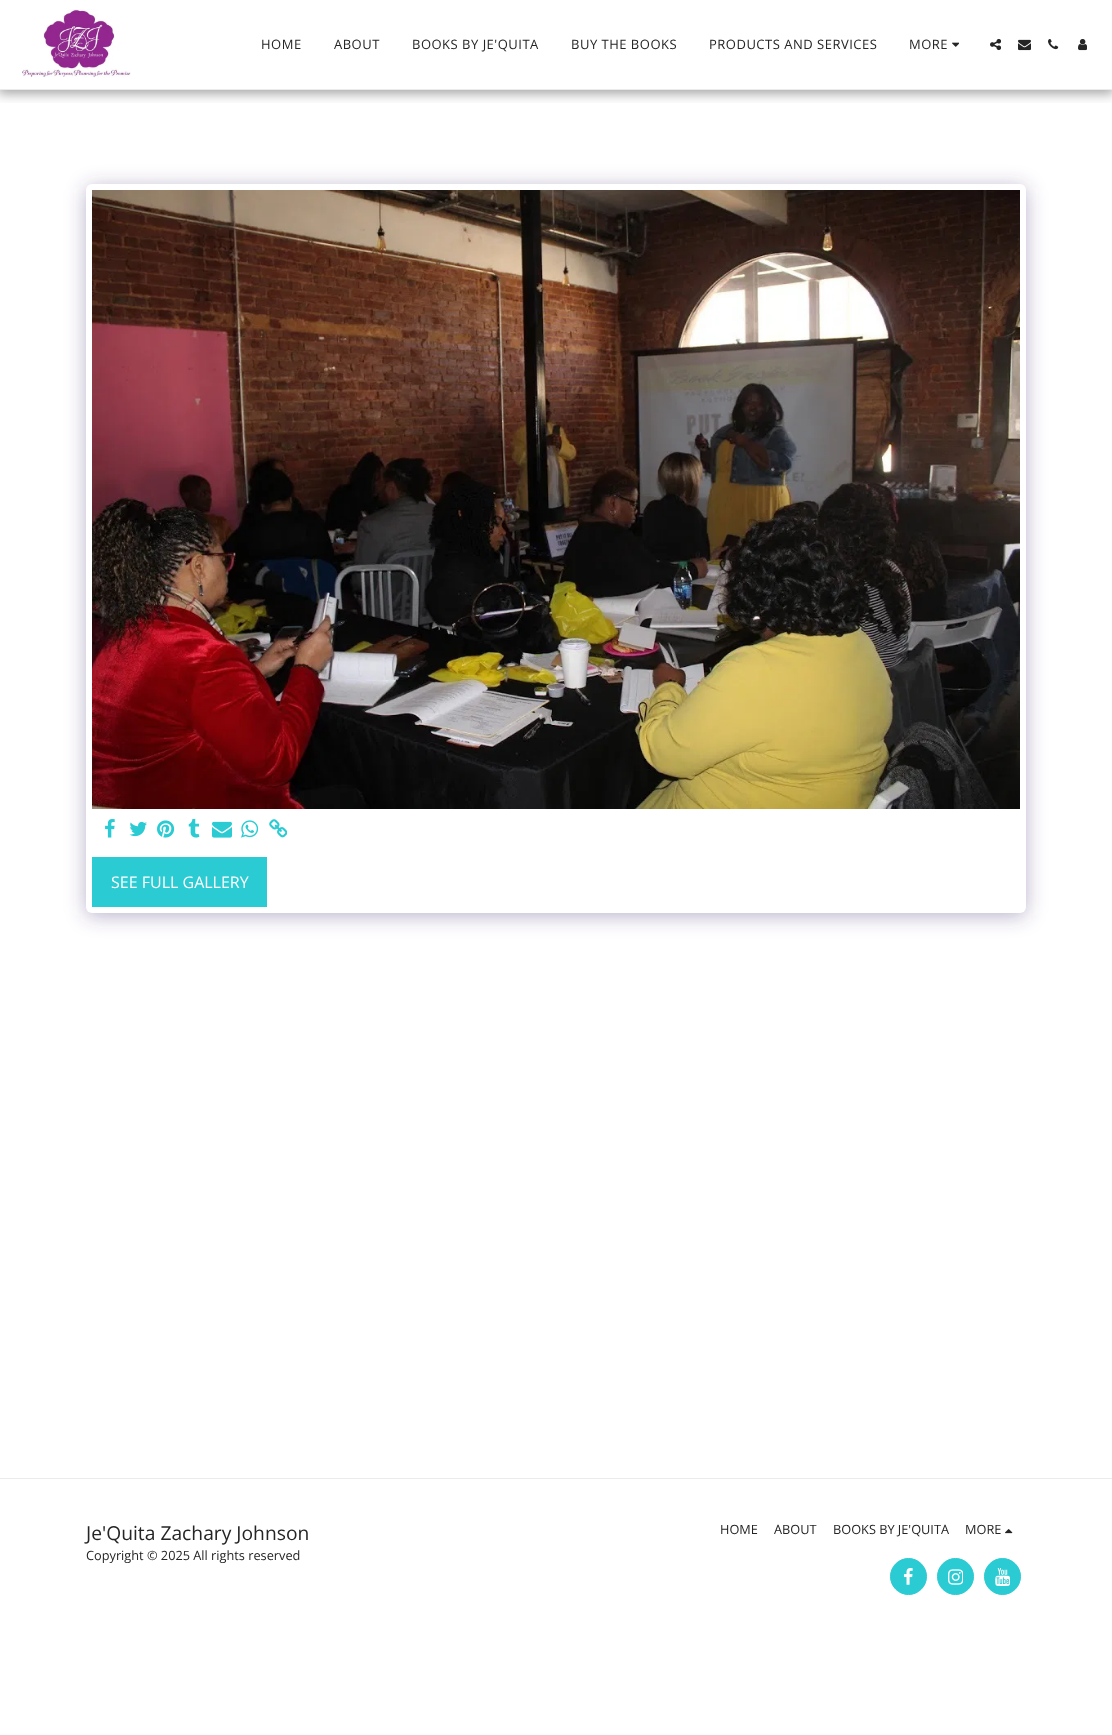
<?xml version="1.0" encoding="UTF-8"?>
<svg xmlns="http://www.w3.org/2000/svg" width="1112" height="1735">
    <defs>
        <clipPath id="clip1"><rect x="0" y="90" width="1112" height="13"/></clipPath>
        <filter id="blur1" x="-50%" y="-200%" width="200%" height="500%"><feGaussianBlur stdDeviation="6"/></filter>
        <filter id="blur2" x="-50%" y="-200%" width="200%" height="500%"><feGaussianBlur stdDeviation="10"/></filter>
    </defs>
    <rect width="100%" height="100%" fill="#FFFFFF"/>
    <g clip-path="url(#clip1)">
        <rect x="-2" y="0" width="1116" height="94" fill="#000000" fill-opacity="0.35" filter="url(#blur1)"/>
    </g>
    <rect x="0" y="89" width="1112" height="1" fill="#EBEBEB"/>
    <image x="22" y="9" width="109" height="69" href="img_01.png"/>
    <text x="261" y="49" font-family="Open Sans" font-size="13" letter-spacing="0.5" fill="#252525">HOME</text>
    <text x="334" y="49" font-family="Open Sans" font-size="13" letter-spacing="0.5" fill="#252525">ABOUT</text>
    <text x="412" y="49" font-family="Open Sans" font-size="13" letter-spacing="0.5" fill="#252525">BOOKS BY JE'QUITA</text>
    <text x="571" y="49" font-family="Open Sans" font-size="13" letter-spacing="0.5" fill="#252525">BUY THE BOOKS</text>
    <text x="709" y="49" font-family="Open Sans" font-size="13" letter-spacing="0.5" fill="#252525">PRODUCTS AND SERVICES</text>
    <text x="909" y="49" font-family="Open Sans" font-size="13" letter-spacing="0.5" fill="#252525">MORE</text>
    <image x="952" y="42" width="7" height="5" href="img_02.png"/>
    <image x="990" y="38" width="11" height="13" href="img_03.png"/>
    <image x="1018" y="39" width="13" height="12" href="img_04.png"/>
    <image x="1048" y="39" width="11" height="11" href="img_05.png"/>
    <image x="1078" y="39" width="9" height="12" href="img_06.png"/>
    <rect x="86" y="187" width="940" height="729" rx="6" fill="#4D3F7A" fill-opacity="0.4" filter="url(#blur2)"/>
    <rect x="86" y="184" width="940" height="729" rx="6" fill="#FFFFFF"/>
    <image x="92" y="190" width="928" height="619" href="img_07.png"/>
    <image x="105" y="819" width="10" height="19" href="img_08.png"/>
    <image x="129" y="821" width="18" height="16" href="img_09.png"/>
    <image x="157" y="820" width="18" height="18" href="img_10.png"/>
    <image x="188" y="819" width="12" height="19" href="img_11.png"/>
    <image x="212" y="821" width="20" height="17" href="img_12.png"/>
    <image x="241" y="820" width="18" height="18" href="img_13.png"/>
    <image x="269" y="819" width="18" height="19" href="img_14.png"/>
    <rect x="92" y="857" width="175" height="50" fill="#2ACBD2"/>
    <text x="111" y="888" font-family="Open Sans" font-size="16" fill="#FFFFFF">SEE FULL GALLERY</text>
    <rect x="0" y="1478" width="1112" height="1" fill="#EBEBEB"/>
    <text x="86" y="1540" font-family="Open Sans" font-size="19.25" fill="#252525">Je'Quita Zachary Johnson</text>
    <text x="86" y="1560" font-family="Open Sans" font-size="12.75" fill="#252525">Copyright © 2025 All rights reserved</text>
    <text x="720" y="1534" font-family="Open Sans" font-size="12.75" fill="#252525">HOME</text>
    <text x="774" y="1534" font-family="Open Sans" font-size="12.75" fill="#252525">ABOUT</text>
    <text x="833" y="1534" font-family="Open Sans" font-size="12.75" fill="#252525">BOOKS BY JE'QUITA</text>
    <text x="965" y="1534" font-family="Open Sans" font-size="12.75" fill="#252525">MORE</text>
    <image x="1005" y="1529" width="8" height="5" href="img_15.png"/>
    <circle cx="908.5" cy="1576.5" r="18" fill="#2ACBD2" stroke="#2ACBD2"/>
    <image x="903" y="1568" width="10" height="17" href="img_16.png"/>
    <circle cx="955.5" cy="1576.5" r="18" fill="#2ACBD2" stroke="#2ACBD2"/>
    <image x="948" y="1569" width="15" height="16" href="img_17.png"/>
    <circle cx="1002.5" cy="1576.5" r="18" fill="#2ACBD2" stroke="#2ACBD2"/>
    <image x="995" y="1568" width="15" height="18" href="img_18.png"/>
</svg>
